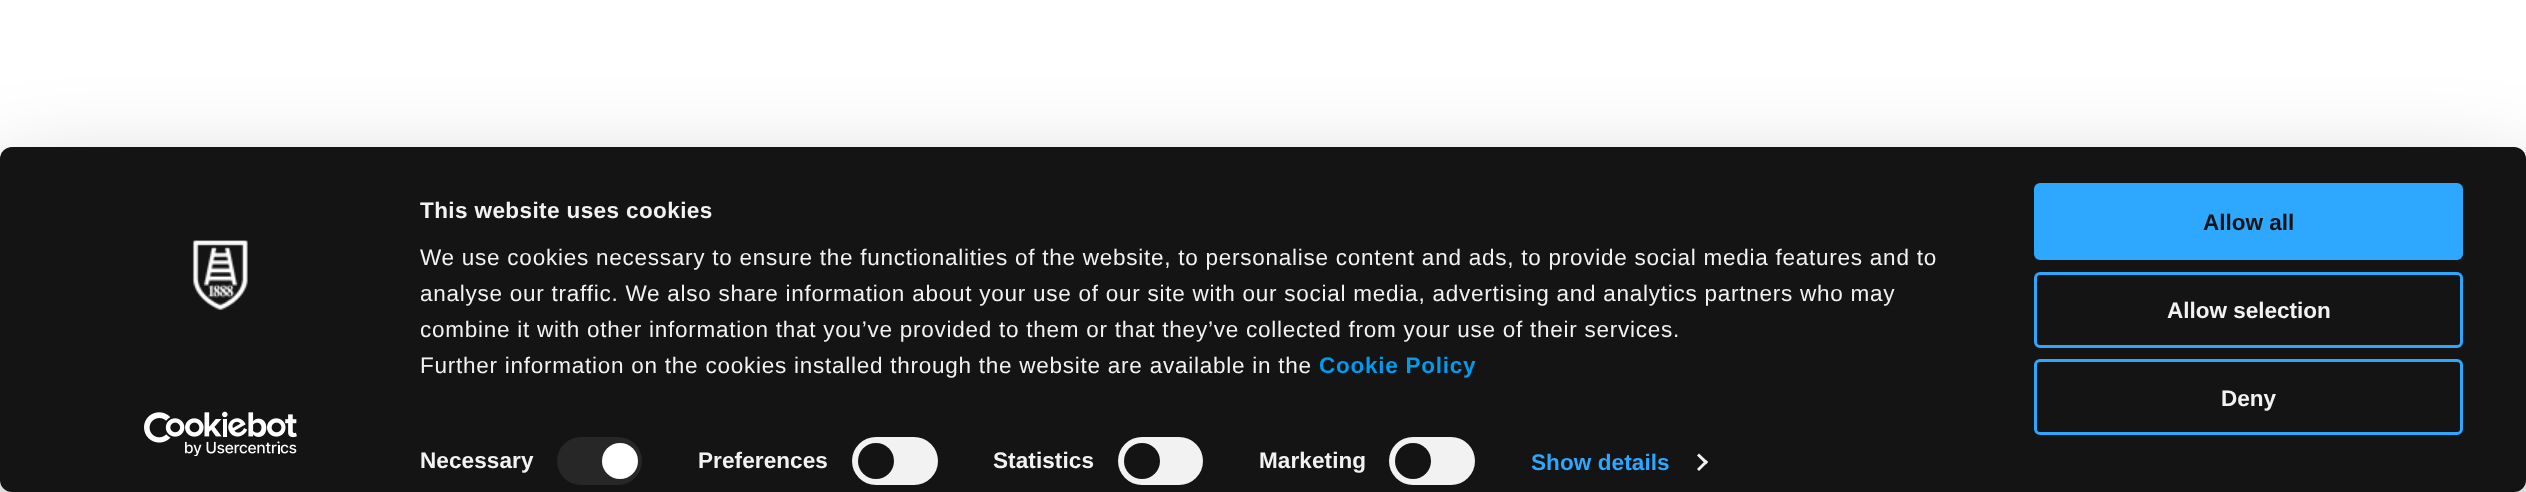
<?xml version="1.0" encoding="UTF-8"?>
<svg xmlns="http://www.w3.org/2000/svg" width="2526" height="492">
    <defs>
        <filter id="blur1" x="-50%" y="-200%" width="200%" height="500%"><feGaussianBlur stdDeviation="52.5"/></filter>
    </defs>
    <rect width="100%" height="100%" fill="#FFFFFF"/>
    <rect x="0" y="192" width="2526" height="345" rx="12" fill="#000000" fill-opacity="0.3" filter="url(#blur1)"/>
    <rect x="0" y="147" width="2526" height="345" rx="12" fill="#141414"/>
    <image x="192" y="240" width="56" height="70" href="img_01.png"/>
    <image x="144" y="411" width="153" height="45" href="img_02.png"/>
    <text x="420" y="218" font-family="Liberation Sans" font-size="22.5" font-weight="700" letter-spacing="0.4" fill="#F2F2F2">This website uses cookies</text>
    <text font-family="Liberation Sans" font-size="22.5" letter-spacing="0.75" fill="#F2F2F2">
        <tspan x="420" y="265">We use cookies necessary to ensure the functionalities of the website, to personalise content and ads, to provide social media features and to</tspan>
        <tspan x="420" y="301">analyse our traffic. We also share information about your use of our site with our social media, advertising and analytics partners who may</tspan>
        <tspan x="420" y="337">combine it with other information that you’ve provided to them or that they’ve collected from your use of their services.</tspan>
        <tspan x="420" y="373">Further information on the cookies installed through the website are available in the</tspan>
    </text>
    <text x="1319" y="373" font-family="Liberation Sans" font-size="22.5" font-weight="700" letter-spacing="0.75" fill="#009AEE">Cookie Policy</text>
    <text x="420" y="468" font-family="Liberation Sans" font-size="22.5" font-weight="700" letter-spacing="0.1" fill="#F2F2F2">Necessary</text>
    <rect x="557" y="437" width="85" height="48" rx="24" fill="#272727"/>
    <circle cx="620" cy="461" r="18" fill="#FFFFFF"/>
    <text x="698" y="468" font-family="Liberation Sans" font-size="22.5" font-weight="700" letter-spacing="0.1" fill="#F2F2F2">Preferences</text>
    <rect x="852" y="437" width="86" height="48" rx="24" fill="#F2F2F2"/>
    <circle cx="876" cy="461" r="18" fill="#141414"/>
    <text x="993" y="468" font-family="Liberation Sans" font-size="22.5" font-weight="700" letter-spacing="0.1" fill="#F2F2F2">Statistics</text>
    <rect x="1118" y="437" width="85" height="48" rx="24" fill="#F2F2F2"/>
    <circle cx="1142" cy="461" r="18" fill="#141414"/>
    <text x="1259" y="468" font-family="Liberation Sans" font-size="22.5" font-weight="700" letter-spacing="0.1" fill="#F2F2F2">Marketing</text>
    <rect x="1389" y="437" width="86" height="48" rx="24" fill="#F2F2F2"/>
    <circle cx="1413" cy="461" r="18" fill="#141414"/>
    <text x="1531" y="470" font-family="Liberation Sans" font-size="22.5" font-weight="700" letter-spacing="0.1" fill="#2EA7FF">Show details</text>
    <path d="M 1699 453.5 L 1708 462 L 1706 464.5 L 1697 455.5 Z" fill="#F2F2F2"/>
    <path d="M 1706 460 L 1708 462 L 1699 471 L 1697 469 Z" fill="#F2F2F2"/>
    <rect x="2035.5" y="184.5" width="426" height="74" rx="4.5" fill="#2EA7FF" stroke="#2EA7FF" stroke-width="3"/>
    <text x="2203" y="230" font-family="Liberation Sans" font-size="22.5" font-weight="700" fill="#141414">Allow all</text>
    <rect x="2035.5" y="273.5" width="426" height="73" rx="4.5" fill="none" stroke="#2EA7FF" stroke-width="3"/>
    <text x="2167" y="318" font-family="Liberation Sans" font-size="22.5" font-weight="700" fill="#F2F2F2">Allow selection</text>
    <rect x="2035.5" y="360.5" width="426" height="73" rx="4.5" fill="none" stroke="#2EA7FF" stroke-width="3"/>
    <text x="2221" y="406" font-family="Liberation Sans" font-size="22.5" font-weight="700" fill="#F2F2F2">Deny</text>
</svg>
